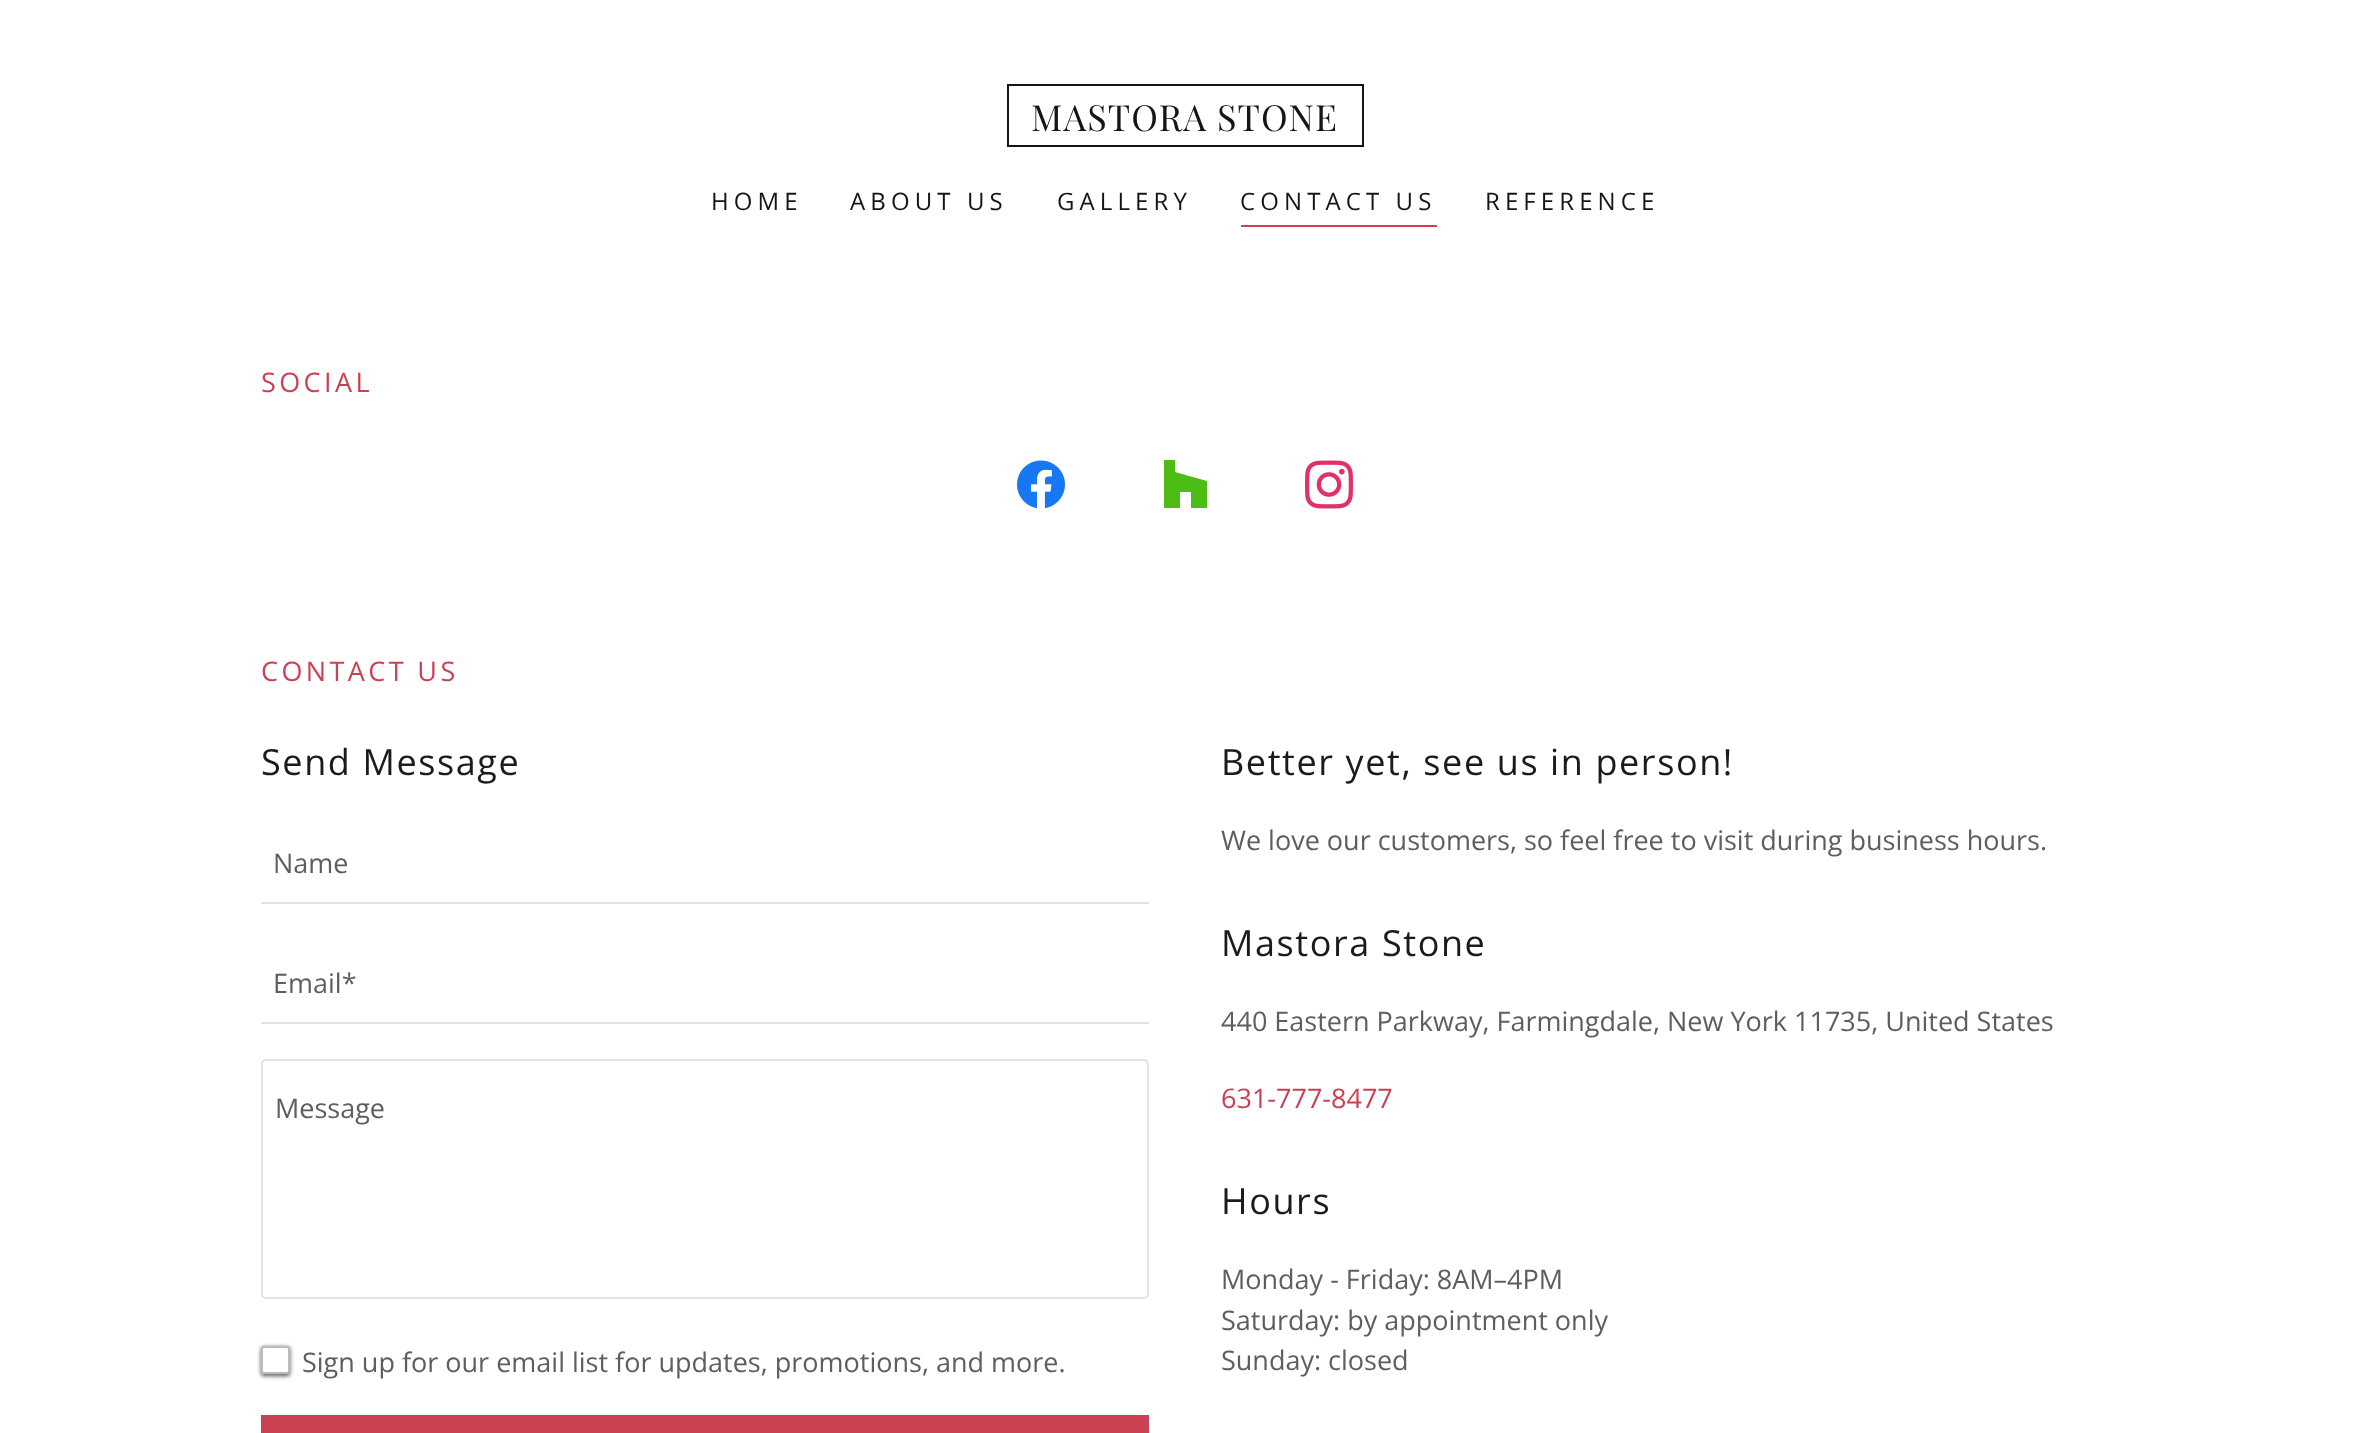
<?xml version="1.0" encoding="UTF-8"?>
<svg xmlns="http://www.w3.org/2000/svg" width="2370" height="1433">
    <defs>
        <clipPath id="clip1"><path d="M 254 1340 H 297 V 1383 H 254 Z M 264 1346 H 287 C 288.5 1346 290 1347.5 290 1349 V 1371 C 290 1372.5 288.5 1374 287 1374 H 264 C 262.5 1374 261 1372.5 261 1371 V 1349 C 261 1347.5 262.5 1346 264 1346 Z" clip-rule="evenodd"/></clipPath>
        <filter id="blur1" x="-50%" y="-200%" width="200%" height="500%"><feGaussianBlur stdDeviation="2"/></filter>
    </defs>
    <rect width="100%" height="100%" fill="#FFFFFF"/>
    <rect x="1008" y="85" width="355" height="61" fill="none" stroke="#151515" stroke-width="2"/>
    <text x="1031" y="131" font-family="Playfair Display" font-size="36" letter-spacing="1.1" fill="#151515">MASTORA STONE</text>
    <text x="711" y="210" font-family="Open Sans" font-size="24" letter-spacing="5.1" fill="#151515">HOME</text>
    <text x="850" y="210" font-family="Open Sans" font-size="24" letter-spacing="5.1" fill="#151515">ABOUT US</text>
    <text x="1057" y="210" font-family="Open Sans" font-size="24" letter-spacing="5.1" fill="#151515">GALLERY</text>
    <rect x="1241" y="225" width="196" height="2" fill="#CB4154"/>
    <text x="1240" y="210" font-family="Open Sans" font-size="24" letter-spacing="5.1" fill="#151515">CONTACT US</text>
    <text x="1485" y="210" font-family="Open Sans" font-size="24" letter-spacing="5.1" fill="#151515">REFERENCE</text>
    <text x="261" y="392" font-family="Open Sans" font-size="27" letter-spacing="3.4" fill="#CB4154">SOCIAL</text>
    <image x="1017" y="460" width="48" height="49" href="img_01.png"/>
    <path d="M 1207 481 V 508 H 1191 V 492 H 1180 V 508 H 1164 V 460 H 1175 V 472 Z" fill="#4DBC15"/>
    <image x="1305" y="460" width="48" height="49" href="img_02.png"/>
    <text x="261" y="681" font-family="Open Sans" font-size="27" letter-spacing="3.4" fill="#CB4154">CONTACT US</text>
    <text x="261" y="775" font-family="Open Sans" font-size="36" letter-spacing="1.6" fill="#1B1B1B">Send Message</text>
    <text x="273" y="873" font-family="Open Sans" font-size="27" fill="#5E5E5E">Name</text>
    <rect x="261" y="902" width="888" height="2" fill="#E2E2E2"/>
    <text x="273" y="993" font-family="Open Sans" font-size="27" fill="#5E5E5E">Email*</text>
    <rect x="261" y="1022" width="888" height="2" fill="#E2E2E2"/>
    <rect x="262" y="1060" width="886" height="238" rx="4" fill="none" stroke="#E2E2E2" stroke-width="2"/>
    <text x="275" y="1118" font-family="Open Sans" font-size="27" fill="#5E5E5E">Message</text>
    <g clip-path="url(#clip1)">
        <rect x="261" y="1347" width="29" height="29" rx="3" fill="#595959" filter="url(#blur1)"/>
    </g>
    <rect x="262" y="1347" width="27" height="26" rx="2" fill="none" stroke="#777777" stroke-opacity="0.5" stroke-width="2"/>
    <text x="302" y="1372" font-family="Open Sans" font-size="27" fill="#5E5E5E">Sign up for our email list for updates, promotions, and more.</text>
    <rect x="261" y="1415" width="888" height="18" fill="#CB4154"/>
    <text x="1221" y="775" font-family="Open Sans" font-size="36" letter-spacing="1.6" fill="#1B1B1B">Better yet, see us in person!</text>
    <text x="1221" y="850" font-family="Open Sans" font-size="27" fill="#5E5E5E">We love our customers, so feel free to visit during business hours.</text>
    <text x="1221" y="956" font-family="Open Sans" font-size="36" letter-spacing="1.6" fill="#1B1B1B">Mastora Stone</text>
    <text x="1221" y="1031" font-family="Open Sans" font-size="27" fill="#5E5E5E">440 Eastern Parkway, Farmingdale, New York 11735, United States</text>
    <text x="1221" y="1108" font-family="Open Sans" font-size="27" fill="#CB4154">631-777-8477</text>
    <text x="1221" y="1214" font-family="Open Sans" font-size="36" letter-spacing="1.6" fill="#1B1B1B">Hours</text>
    <text font-family="Open Sans" font-size="27" fill="#5E5E5E">
        <tspan x="1221" y="1289">Monday - Friday: 8AM–4PM</tspan>
        <tspan x="1221" y="1330">Saturday: by appointment only</tspan>
        <tspan x="1221" y="1370">Sunday: closed</tspan>
    </text>
</svg>
